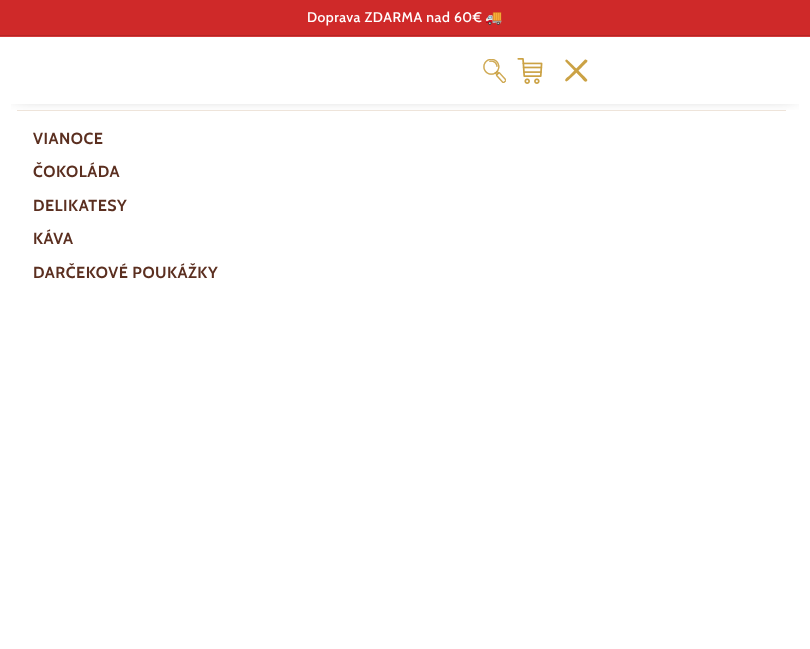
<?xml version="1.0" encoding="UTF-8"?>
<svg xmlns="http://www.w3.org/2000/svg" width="810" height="649">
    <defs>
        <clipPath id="clip1"><rect x="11" y="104" width="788" height="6"/></clipPath>
        <filter id="blur1" x="-50%" y="-200%" width="200%" height="500%"><feGaussianBlur stdDeviation="10"/></filter>
    </defs>
    <rect width="100%" height="100%" fill="#FFFFFF"/>
    <g clip-path="url(#clip1)">
        <rect x="15" y="52" width="780" height="37" fill="#000000" filter="url(#blur1)"/>
    </g>
    <rect x="0" y="0" width="810" height="35" fill="#CF2929"/>
    <rect x="0" y="36" width="810" height="1" fill="#D33A3A"/>
    <text x="307" y="22" font-family="Cabin" font-size="14" font-weight="500" letter-spacing="0.5" fill="#FFFFFF">Doprava ZDARMA nad 60€</text>
    <text x="485" y="22" font-family="Noto Color Emoji" font-size="14" letter-spacing="0.5" fill="#FFFFFF">🚚</text>
    <rect x="0" y="35" width="810" height="1" fill="#B62424"/>
    <image x="483" y="59" width="23" height="24" href="img_01.png"/>
    <image x="517" y="58" width="26" height="26" href="img_02.png"/>
    <path d="M 567.5 60 C 570 62.5 587.5 79 587.5 80 L 586.5 81.5 C 584.5 82.5 582 78.5 581.5 78 L 565.5 61.5 C 565 60.5 565.5 59.5 566.5 59.5 Z" fill="#CBA245"/>
    <path d="M 587 62 C 584.5 64.5 568 81.5 566.5 81.5 L 565.5 81 C 564 79 568.5 76.5 569 76 L 585 59.5 C 586 59.5 587.5 60 587.5 61 Z" fill="#CBA245"/>
    <rect x="24" y="111" width="762" height="1" fill="#FFFFFF"/>
    <rect x="17" y="110" width="769" height="1" fill="#EEE4DA"/>
    <text x="33" y="144" font-family="Cabin" font-size="16" font-weight="700" letter-spacing="0.5" fill="#5B2F20">VIANOCE</text>
    <text x="33" y="177" font-family="Cabin" font-size="16" font-weight="700" letter-spacing="0.5" fill="#5B2F20">ČOKOLÁDA</text>
    <text x="33" y="211" font-family="Cabin" font-size="16" font-weight="700" letter-spacing="0.5" fill="#5B2F20">DELIKATESY</text>
    <text x="33" y="244" font-family="Cabin" font-size="16" font-weight="700" letter-spacing="0.5" fill="#5B2F20">KÁVA</text>
    <text x="33" y="278" font-family="Cabin" font-size="16" font-weight="700" letter-spacing="0.5" fill="#5B2F20">DARČEKOVÉ POUKÁŽKY</text>
</svg>
